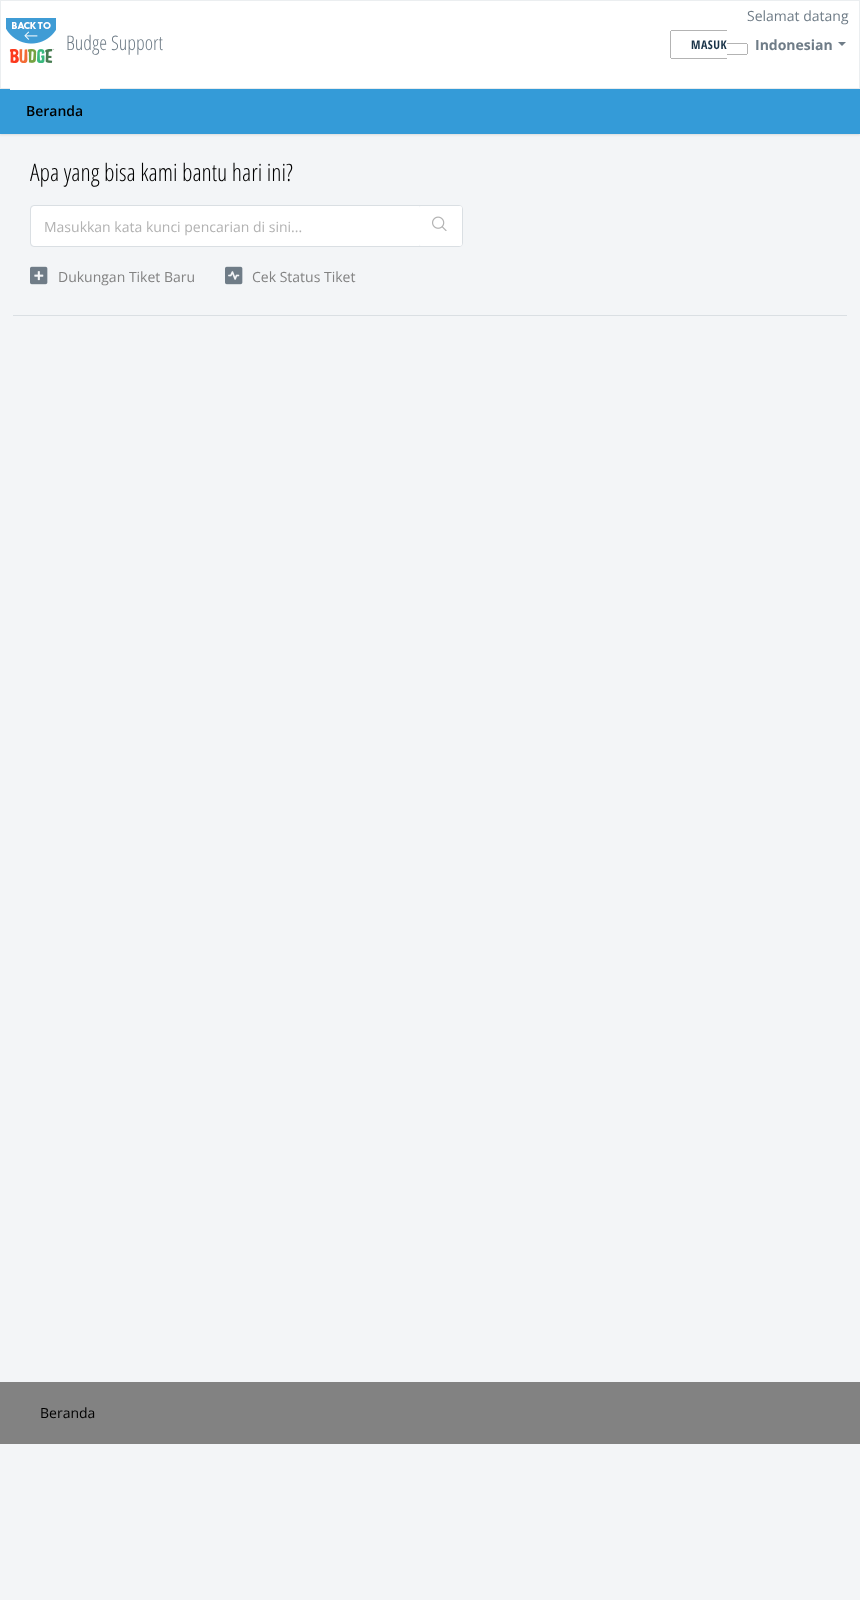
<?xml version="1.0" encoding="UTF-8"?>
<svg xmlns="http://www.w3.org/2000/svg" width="860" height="1600">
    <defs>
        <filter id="blur1" x="-50%" y="-200%" width="200%" height="500%"><feGaussianBlur stdDeviation="1"/></filter>
    </defs>
    <rect width="100%" height="100%" fill="#F3F5F7"/>
    <rect x="0.5" y="0.5" width="859" height="88" fill="#FFFFFF" stroke="#EBEEF0"/>
    <image x="6" y="18" width="50" height="45" href="img_01.png"/>
    <text x="66" y="50" font-family="Open Sans Condensed" font-size="20" font-weight="300" fill="#6F7C87">Budge Support</text>
    <text x="747" y="21" font-family="Open Sans" font-size="14" fill="#6F7C87">Selamat datang</text>
    <text x="691" y="49" font-family="Open Sans Condensed" font-size="12" font-weight="700" letter-spacing="0.5" fill="#183247">MASUK</text>
    <rect x="671" y="30" width="56" height="1" fill="#B3B3B3"/>
    <rect x="671" y="58" width="56" height="1" fill="#B3B3B3"/>
    <rect x="670" y="31" width="1" height="27" fill="#B3B3B3"/>
    <rect x="727" y="43" width="20" height="1" fill="#B3B3B3"/>
    <rect x="747" y="44" width="1" height="10" fill="#B3B3B3"/>
    <rect x="727" y="54" width="20" height="1" fill="#B3B3B3"/>
    <text x="755" y="50" font-family="Open Sans" font-size="14" font-weight="700" fill="#6F7C87">Indonesian</text>
    <path d="M 838 42 H 846 L 842 46 Z" fill="#6F7C87"/>
    <rect x="0" y="90" width="860" height="45" fill="#3F3F44" fill-opacity="0.15" filter="url(#blur1)"/>
    <rect x="0" y="89" width="860" height="45" fill="#349BD8"/>
    <rect x="10" y="88" width="90" height="2" fill="#FFFFFF"/>
    <text x="26" y="116" font-family="Open Sans" font-size="14" font-weight="600" fill="#000000">Beranda</text>
    <rect x="13" y="315" width="834" height="1" fill="#DADFE3"/>
    <text x="30" y="181" font-family="Open Sans Condensed" font-size="24" font-weight="300" fill="#000000">Apa yang bisa kami bantu hari ini?</text>
    <rect x="30.5" y="205.5" width="432" height="41" rx="3.5" fill="none" stroke="#DADFE3"/>
    <path d="M 35 206 H 419 V 246 H 35 C 33 246 31 244 31 242 V 210 C 31 208 33 206 35 206 Z" fill="#FFFFFF"/>
    <text x="44" y="232" font-family="Open Sans" font-size="14" fill="#B2B2B2">Masukkan kata kunci pencarian di sini...</text>
    <rect x="419" y="206" width="43" height="40" rx="2" fill="#FFFFFF"/>
    <image x="432" y="216" width="15" height="15" href="img_02.png"/>
    <image x="30" y="266" width="18" height="19" href="img_03.png"/>
    <text x="58" y="282" font-family="Open Sans" font-size="14" fill="#828282">Dukungan Tiket Baru</text>
    <image x="225" y="266" width="18" height="19" href="img_04.png"/>
    <text x="252" y="282" font-family="Open Sans" font-size="14" fill="#828282">Cek Status Tiket</text>
    <rect x="0" y="1382" width="860" height="62" fill="#828282"/>
    <text x="40" y="1418" font-family="Open Sans" font-size="14" fill="#000000">Beranda</text>
</svg>
